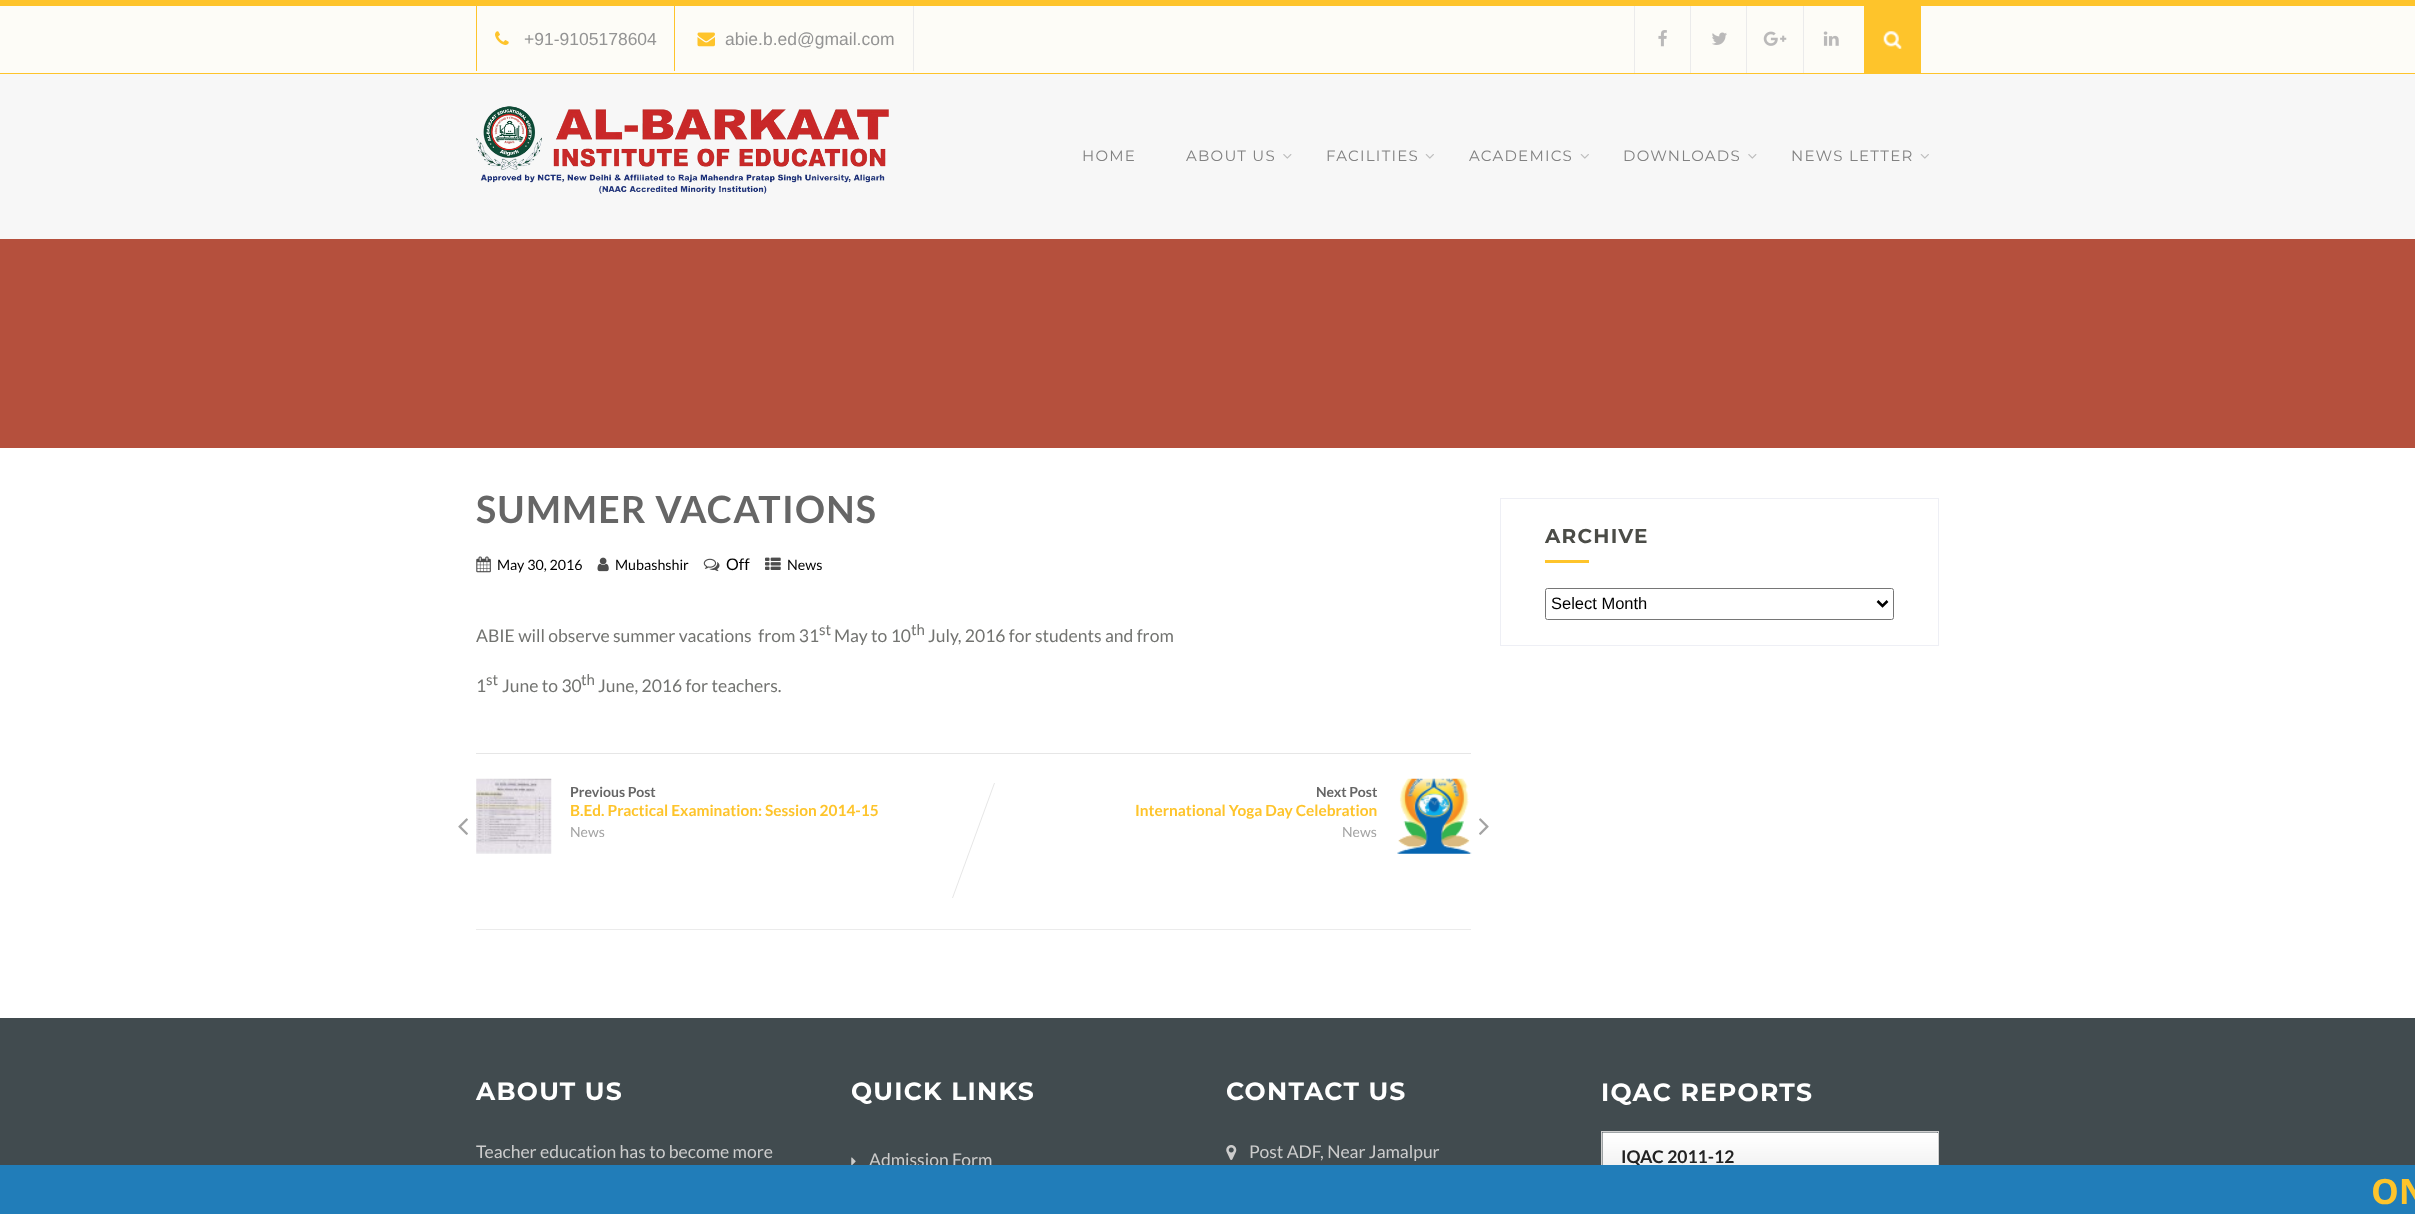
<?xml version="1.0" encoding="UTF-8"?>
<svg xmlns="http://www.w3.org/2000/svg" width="2415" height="1214">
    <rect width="100%" height="100%" fill="#FFFFFF"/>
    <rect x="0" y="6" width="2415" height="67" fill="#FDFCF7"/>
    <rect x="0" y="0" width="2415" height="6" fill="#FEC42B"/>
    <rect x="0" y="73" width="2415" height="1" fill="#FEC42B"/>
    <rect x="674" y="6" width="1" height="65" fill="#FEC42B"/>
    <rect x="476" y="6" width="1" height="65" fill="#FEC42B"/>
    <image x="495" y="31" width="14" height="14" href="img_01.png"/>
    <text x="524" y="45" font-family="Arimo" font-size="17.5" fill="#949494">+91-9105178604</text>
    <rect x="913" y="6" width="1" height="65" fill="#EBEBEB"/>
    <image x="697" y="32" width="18" height="15" href="img_02.png"/>
    <text x="725" y="45" font-family="Arimo" font-size="17.5" fill="#949494">abie.b.ed@gmail.com</text>
    <rect x="1634" y="6" width="1" height="67" fill="#EBEBEB"/>
    <image x="1658" y="30" width="9" height="17" href="img_03.png"/>
    <rect x="1690" y="6" width="1" height="67" fill="#EBEBEB"/>
    <image x="1712" y="32" width="15" height="13" href="img_04.png"/>
    <rect x="1746" y="6" width="1" height="67" fill="#EBEBEB"/>
    <image x="1763" y="31" width="24" height="15" href="img_05.png"/>
    <rect x="1803" y="6" width="1" height="67" fill="#EBEBEB"/>
    <image x="1823" y="31" width="16" height="15" href="img_06.png"/>
    <rect x="1864" y="6" width="57" height="67" fill="#FEC42B"/>
    <image x="1883" y="31" width="19" height="18" href="img_07.png"/>
    <rect x="0" y="74" width="2415" height="165" fill="#F7F7F7"/>
    <image x="476" y="106" width="413" height="88" href="img_08.png"/>
    <text x="1082" y="161" font-family="Montserrat" font-size="15" letter-spacing="1.25" fill="#818181">HOME</text>
    <text x="1186" y="161" font-family="Montserrat" font-size="15" letter-spacing="1.25" fill="#818181">ABOUT US</text>
    <image x="1283" y="154" width="9" height="5" href="img_09.png"/>
    <text x="1326" y="161" font-family="Montserrat" font-size="15" letter-spacing="1.25" fill="#818181">FACILITIES</text>
    <image x="1425" y="154" width="9" height="5" href="img_10.png"/>
    <text x="1469" y="161" font-family="Montserrat" font-size="15" letter-spacing="1.25" fill="#818181">ACADEMICS</text>
    <image x="1580" y="154" width="9" height="5" href="img_10.png"/>
    <text x="1623" y="161" font-family="Montserrat" font-size="15" letter-spacing="1.25" fill="#818181">DOWNLOADS</text>
    <image x="1748" y="154" width="9" height="5" href="img_09.png"/>
    <text x="1791" y="161" font-family="Montserrat" font-size="15" letter-spacing="1.25" fill="#818181">NEWS LETTER</text>
    <image x="1920" y="154" width="9" height="5" href="img_10.png"/>
    <rect x="0" y="239" width="2415" height="209" fill="#B5503D"/>
    <text x="476" y="523" font-family="Lato" font-size="37.5" font-weight="700" letter-spacing="1.25" fill="#666666">SUMMER VACATIONS</text>
    <image x="476" y="556" width="15" height="17" href="img_11.png"/>
    <text x="497" y="570" font-family="Lato" font-size="14.25" fill="#000000">May 30, 2016</text>
    <image x="597" y="557" width="12" height="15" href="img_12.png"/>
    <text x="615" y="570" font-family="Lato" font-size="14.25" fill="#000000">Mubashshir</text>
    <image x="703" y="558" width="17" height="14" href="img_13.png"/>
    <text x="726" y="570" font-family="Lato" font-size="16" fill="#000000">Off</text>
    <image x="765" y="557" width="16" height="13" href="img_14.png"/>
    <text x="787" y="570" font-family="Lato" font-size="14.25" fill="#000000">News</text>
    <text x="476" y="642" font-family="Lato" font-size="17.5" fill="#727370" xml:space="preserve">ABIE will observe summer vacations  from 31</text>
    <text x="819" y="635" font-family="Lato" font-size="15" fill="#727370">st</text>
    <text x="834" y="642" font-family="Lato" font-size="17.5" fill="#727370">May to 10</text>
    <text x="911" y="635" font-family="Lato" font-size="15" fill="#727370">th</text>
    <text x="928" y="642" font-family="Lato" font-size="17.5" fill="#727370">July, 2016 for students and from</text>
    <text x="476" y="692" font-family="Lato" font-size="17.5" fill="#727370">1</text>
    <text x="486" y="685" font-family="Lato" font-size="15" fill="#727370">st</text>
    <text x="502" y="692" font-family="Lato" font-size="17.5" fill="#727370">June to 30</text>
    <text x="581" y="685" font-family="Lato" font-size="15" fill="#727370">th</text>
    <text x="598" y="692" font-family="Lato" font-size="17.5" fill="#727370">June, 2016 for teachers.</text>
    <rect x="476" y="753" width="995" height="1" fill="#E6E6E6"/>
    <rect x="476" y="929" width="995" height="1" fill="#EBEBEB"/>
    <image x="476" y="778" width="76" height="76" href="img_15.png"/>
    <text x="570" y="797" font-family="Lato" font-size="14" font-weight="700" fill="#666666">Previous Post</text>
    <text x="570" y="816" font-family="Lato" font-size="15.4" font-weight="700" fill="#FEC42B">B.Ed. Practical Examination: Session 2014-15</text>
    <image x="458" y="818" width="10" height="17" href="img_16.png"/>
    <text x="570" y="837" font-family="Lato" font-size="14" fill="#A3A3A3">News</text>
    <path d="M 994 783 H 995 L 953 898 H 952 Z" fill="#E6E6E6"/>
    <text x="1316" y="797" font-family="Lato" font-size="14" font-weight="700" fill="#666666">Next Post</text>
    <image x="1397" y="778" width="75" height="76" href="img_17.png"/>
    <text x="1135" y="816" font-family="Lato" font-size="15.4" font-weight="700" fill="#FEC42B">International Yoga Day Celebration</text>
    <image x="1479" y="818" width="10" height="17" href="img_18.png"/>
    <text x="1342" y="837" font-family="Lato" font-size="14" fill="#A3A3A3">News</text>
    <rect x="1500.5" y="498.5" width="438" height="147" fill="none" stroke="#EEEFF5"/>
    <text x="1545" y="543" font-family="Montserrat" font-size="20" font-weight="700" letter-spacing="1.25" fill="#4B4C47">ARCHIVE</text>
    <rect x="1545" y="560" width="44" height="3" fill="#FEC42B"/>
    <rect x="1545.5" y="588.5" width="348" height="31" rx="2" fill="none" stroke="#767676"/>
    <path d="M 1877.5 601 L 1882.5 606 L 1887.5 601" fill="none" stroke="#000000" stroke-width="2.5"/>
    <text x="1551" y="609" font-family="Liberation Sans" font-size="16.5" fill="#000000">Select Month</text>
    <rect x="0" y="1018" width="2415" height="147" fill="#414B4F"/>
    <text x="476" y="1100" font-family="Montserrat" font-size="25" font-weight="700" letter-spacing="1.25" fill="#FFFFFF">ABOUT US</text>
    <text x="476" y="1158" font-family="Lato" font-size="17.5" fill="#CCCCCC">Teacher education has to become more</text>
    <text x="851" y="1100" font-family="Montserrat" font-size="25" font-weight="700" letter-spacing="1.25" fill="#FFFFFF">QUICK LINKS</text>
    <image x="851" y="1157" width="5" height="8" href="img_19.png"/>
    <text x="869" y="1166" font-family="Lato" font-size="17.5" fill="#CCCCCC">Admission Form</text>
    <text x="1226" y="1100" font-family="Montserrat" font-size="25" font-weight="700" letter-spacing="1.25" fill="#FFFFFF">CONTACT US</text>
    <image x="1226" y="1145" width="11" height="15" href="img_20.png"/>
    <text x="1249" y="1158" font-family="Lato" font-size="17.5" fill="#CCCCCC">Post ADF, Near Jamalpur</text>
    <text x="1601" y="1101" font-family="Montserrat" font-size="25" font-weight="700" letter-spacing="1.25" fill="#FFFFFF">IQAC REPORTS</text>
    <rect x="1601" y="1131" width="338" height="1" fill="#CFCFCF"/>
    <rect x="1938" y="1131" width="1" height="34" fill="#CFCFCF"/>
    <rect x="1601" y="1131" width="1" height="34" fill="#CFCFCF"/>
    <rect x="1937" y="1133" width="1" height="32" fill="#FFFFFF"/>
    <image x="1602" y="1132" width="336" height="33" href="img_21.png"/>
    <text x="1621" y="1163" font-family="Lato" font-size="17.5" font-weight="700" fill="#222222">IQAC 2011-12</text>
    <rect x="0" y="1165" width="2415" height="49" fill="#217DB9"/>
    <text x="2371" y="1204" font-family="Open Sans" font-size="35" font-weight="700" fill="#FEC42B">ON</text>
</svg>
